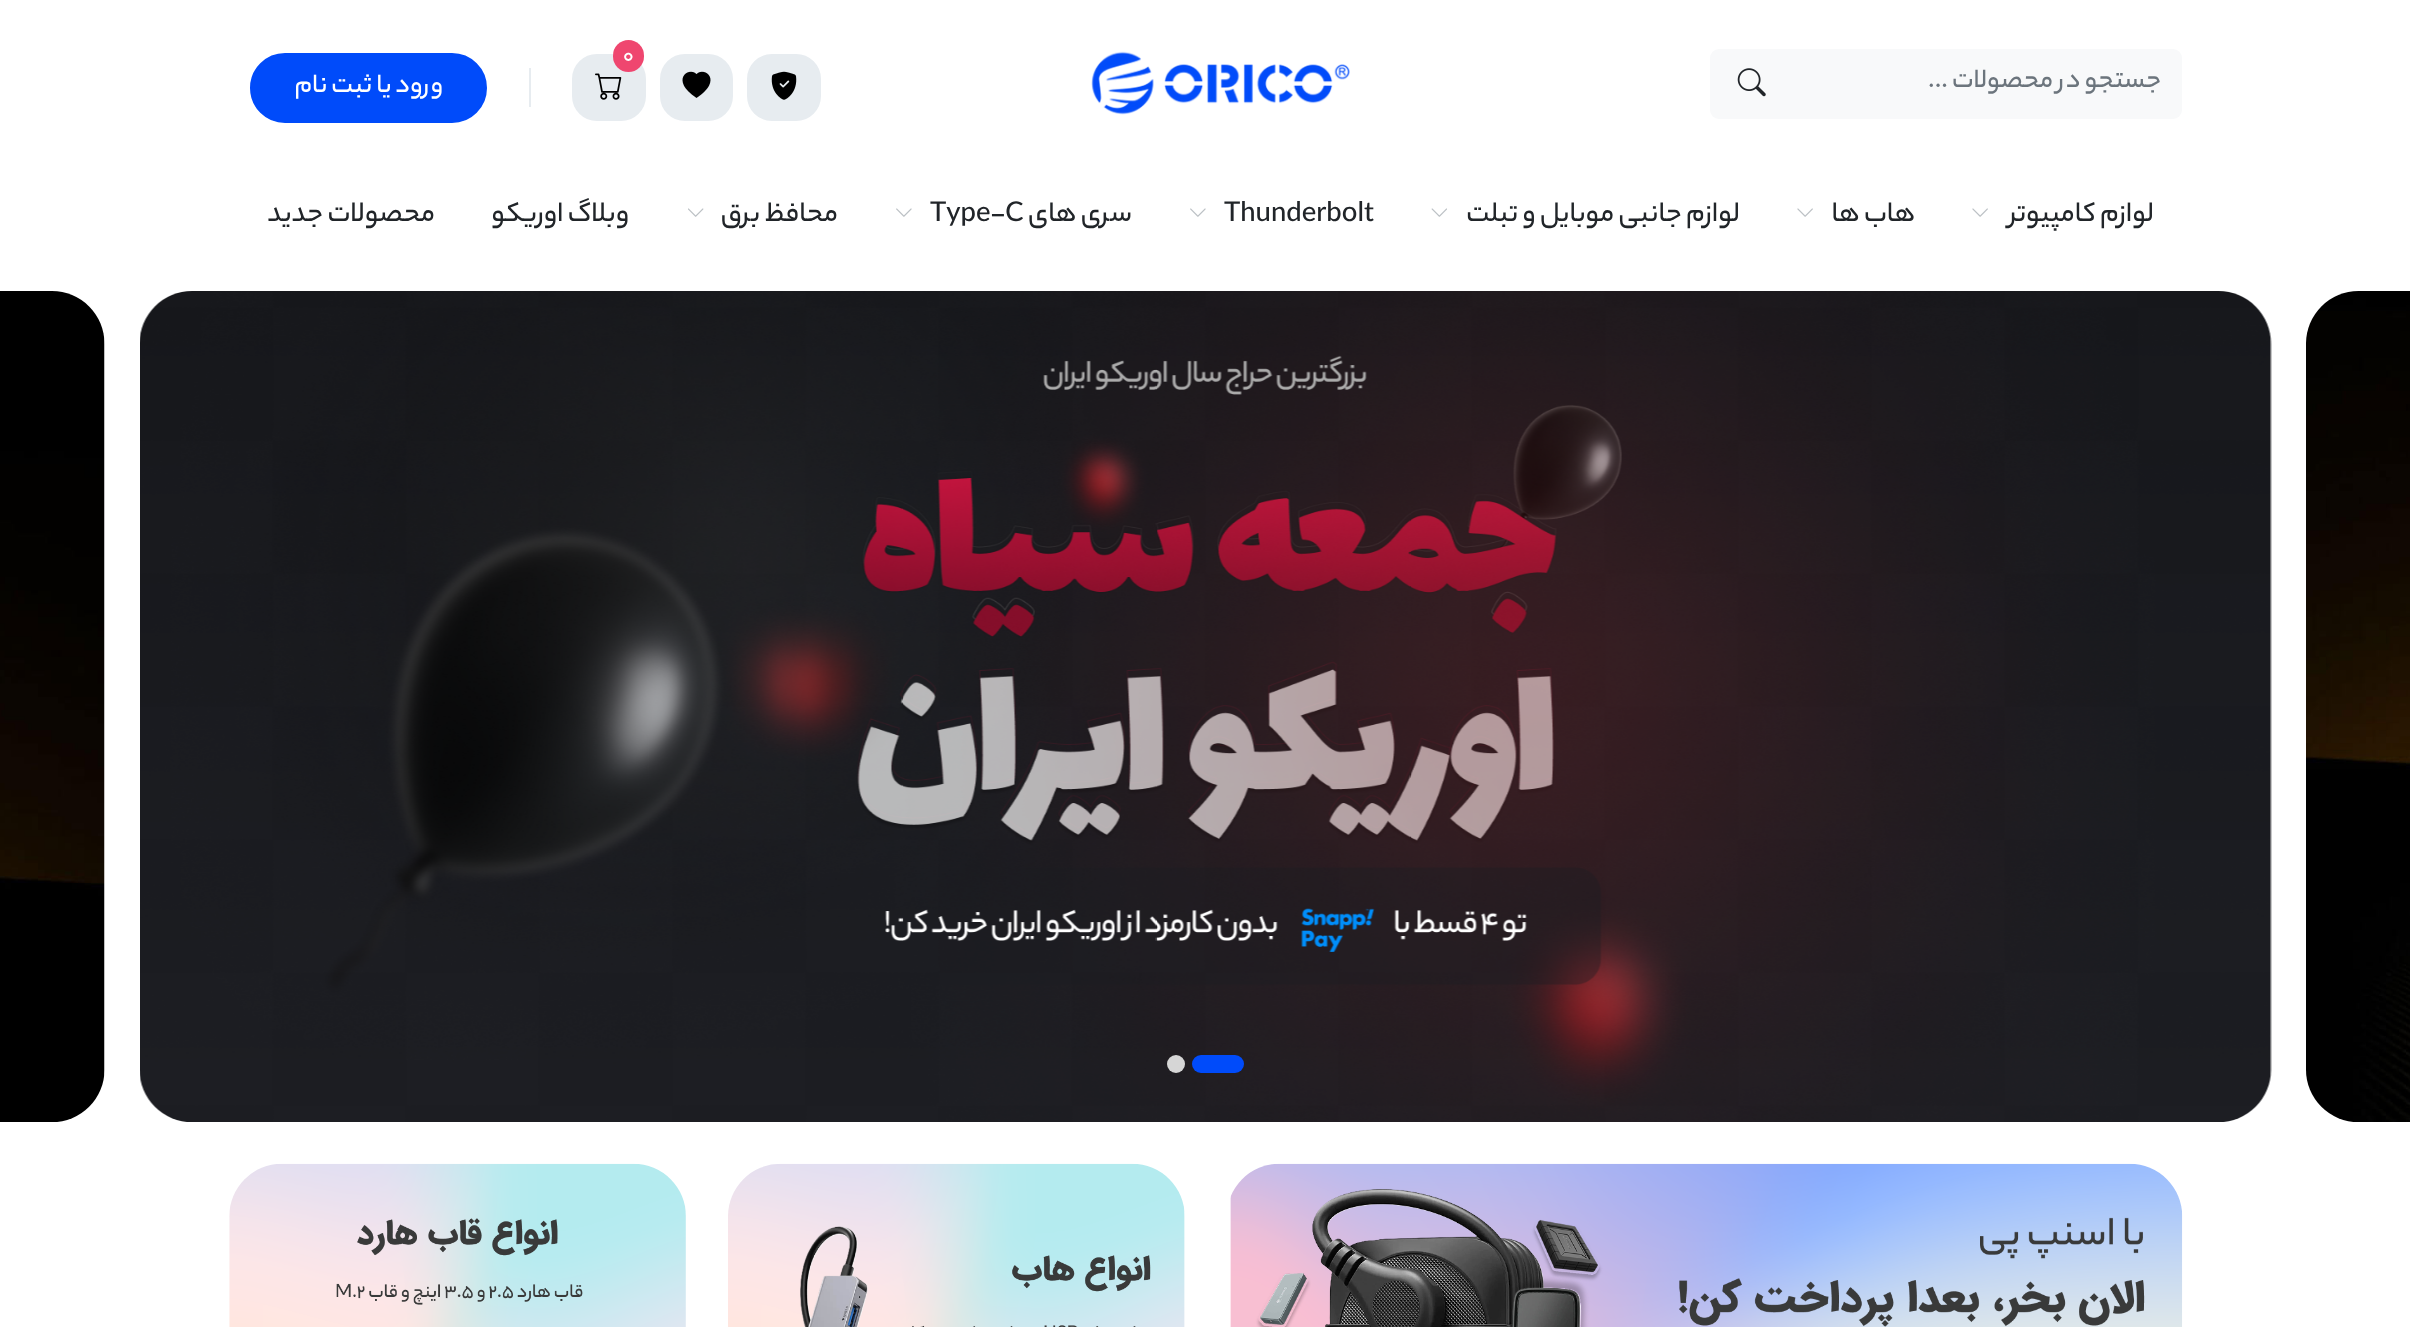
<?xml version="1.0" encoding="UTF-8"?>
<svg xmlns="http://www.w3.org/2000/svg" width="2410" height="1327">
    <rect width="100%" height="100%" fill="#FFFFFF"/>
    <rect x="1710" y="49" width="472" height="70" rx="9" fill="#F8F9FA"/>
    <text x="2161" y="87" font-family="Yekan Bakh" font-size="28" font-weight="500" direction="rtl" fill="#6C757D">جستجو در محصولات ...</text>
    <image x="1737" y="68" width="29" height="29" href="img_01.png"/>
    <image x="1091" y="51" width="259" height="64" href="img_02.png"/>
    <rect x="748" y="55" width="72" height="65" rx="24" fill="#E7ECF0" stroke="#E7ECF0" stroke-width="2"/>
    <image x="771" y="71" width="26" height="29" href="img_03.png"/>
    <rect x="661" y="55" width="71" height="65" rx="24" fill="#E7ECF0" stroke="#E7ECF0" stroke-width="2"/>
    <image x="682" y="71" width="29" height="27" href="img_04.png"/>
    <rect x="573" y="55" width="72" height="65" rx="24" fill="#E7ECF0" stroke="#E7ECF0" stroke-width="2"/>
    <rect x="613" y="40" width="31" height="32" rx="15.5" fill="#EF466F"/>
    <text x="623" y="62" font-family="Yekan Bakh" font-size="24" font-weight="500" fill="#FFFFFF">۰</text>
    <image x="595" y="73" width="27" height="27" href="img_05.png"/>
    <rect x="529" y="68" width="2" height="39" fill="#E7ECF0"/>
    <rect x="251" y="54" width="235" height="68" rx="34" fill="#004BFA" stroke="#004BFA" stroke-width="2"/>
    <text x="443" y="92" font-family="Yekan Bakh" font-size="28" font-weight="500" direction="rtl" fill="#FFFFFF">ورود یا ثبت نام</text>
    <text x="2154" y="221" font-family="Yekan Bakh" font-size="29.75" font-weight="500" direction="rtl" fill="#212529">لوازم کامپیوتر</text>
    <image x="1972" y="208" width="16" height="9" href="img_06.png"/>
    <text x="1915" y="221" font-family="Yekan Bakh" font-size="29.75" font-weight="500" direction="rtl" fill="#212529">هاب ها</text>
    <image x="1797" y="208" width="16" height="9" href="img_06.png"/>
    <text x="1740" y="221" font-family="Yekan Bakh" font-size="29.75" font-weight="500" direction="rtl" fill="#212529">لوازم جانبی موبایل و تبلت</text>
    <image x="1431" y="208" width="16" height="9" href="img_07.png"/>
    <text x="1224" y="221" font-family="Yekan Bakh" font-size="29.75" font-weight="500" fill="#212529">Thunderbolt</text>
    <image x="1190" y="208" width="16" height="9" href="img_08.png"/>
    <text x="1132" y="221" font-family="Yekan Bakh" font-size="29.75" font-weight="500" direction="rtl" fill="#212529">سری های</text>
    <text x="930" y="221" font-family="Yekan Bakh" font-size="29.75" font-weight="500" fill="#212529">Type-C</text>
    <image x="896" y="208" width="16" height="9" href="img_08.png"/>
    <text x="838" y="221" font-family="Yekan Bakh" font-size="29.75" font-weight="500" direction="rtl" fill="#212529">محافظ برق</text>
    <image x="688" y="208" width="16" height="9" href="img_09.png"/>
    <text x="629" y="221" font-family="Yekan Bakh" font-size="29.75" font-weight="500" direction="rtl" fill="#212529">وبلاگ اوریکو</text>
    <text x="435" y="221" font-family="Yekan Bakh" font-size="29.75" font-weight="500" direction="rtl" fill="#212529">محصولات جدید</text>
    <image x="2306" y="291" width="104" height="831" href="img_10.png"/>
    <image x="140" y="291" width="2132" height="831" href="img_11.png"/>
    <image x="0" y="291" width="105" height="831" href="img_12.png"/>
    <rect x="1192" y="1055" width="52" height="18" rx="9" fill="#004BFA"/>
    <circle cx="1176" cy="1064" r="9" fill="#D6D6D6"/>
    <image x="1230" y="1163" width="953" height="164" href="img_13.png"/>
    <image x="728" y="1163" width="457" height="164" href="img_14.png"/>
    <image x="229" y="1163" width="457" height="164" href="img_15.png"/>
</svg>
